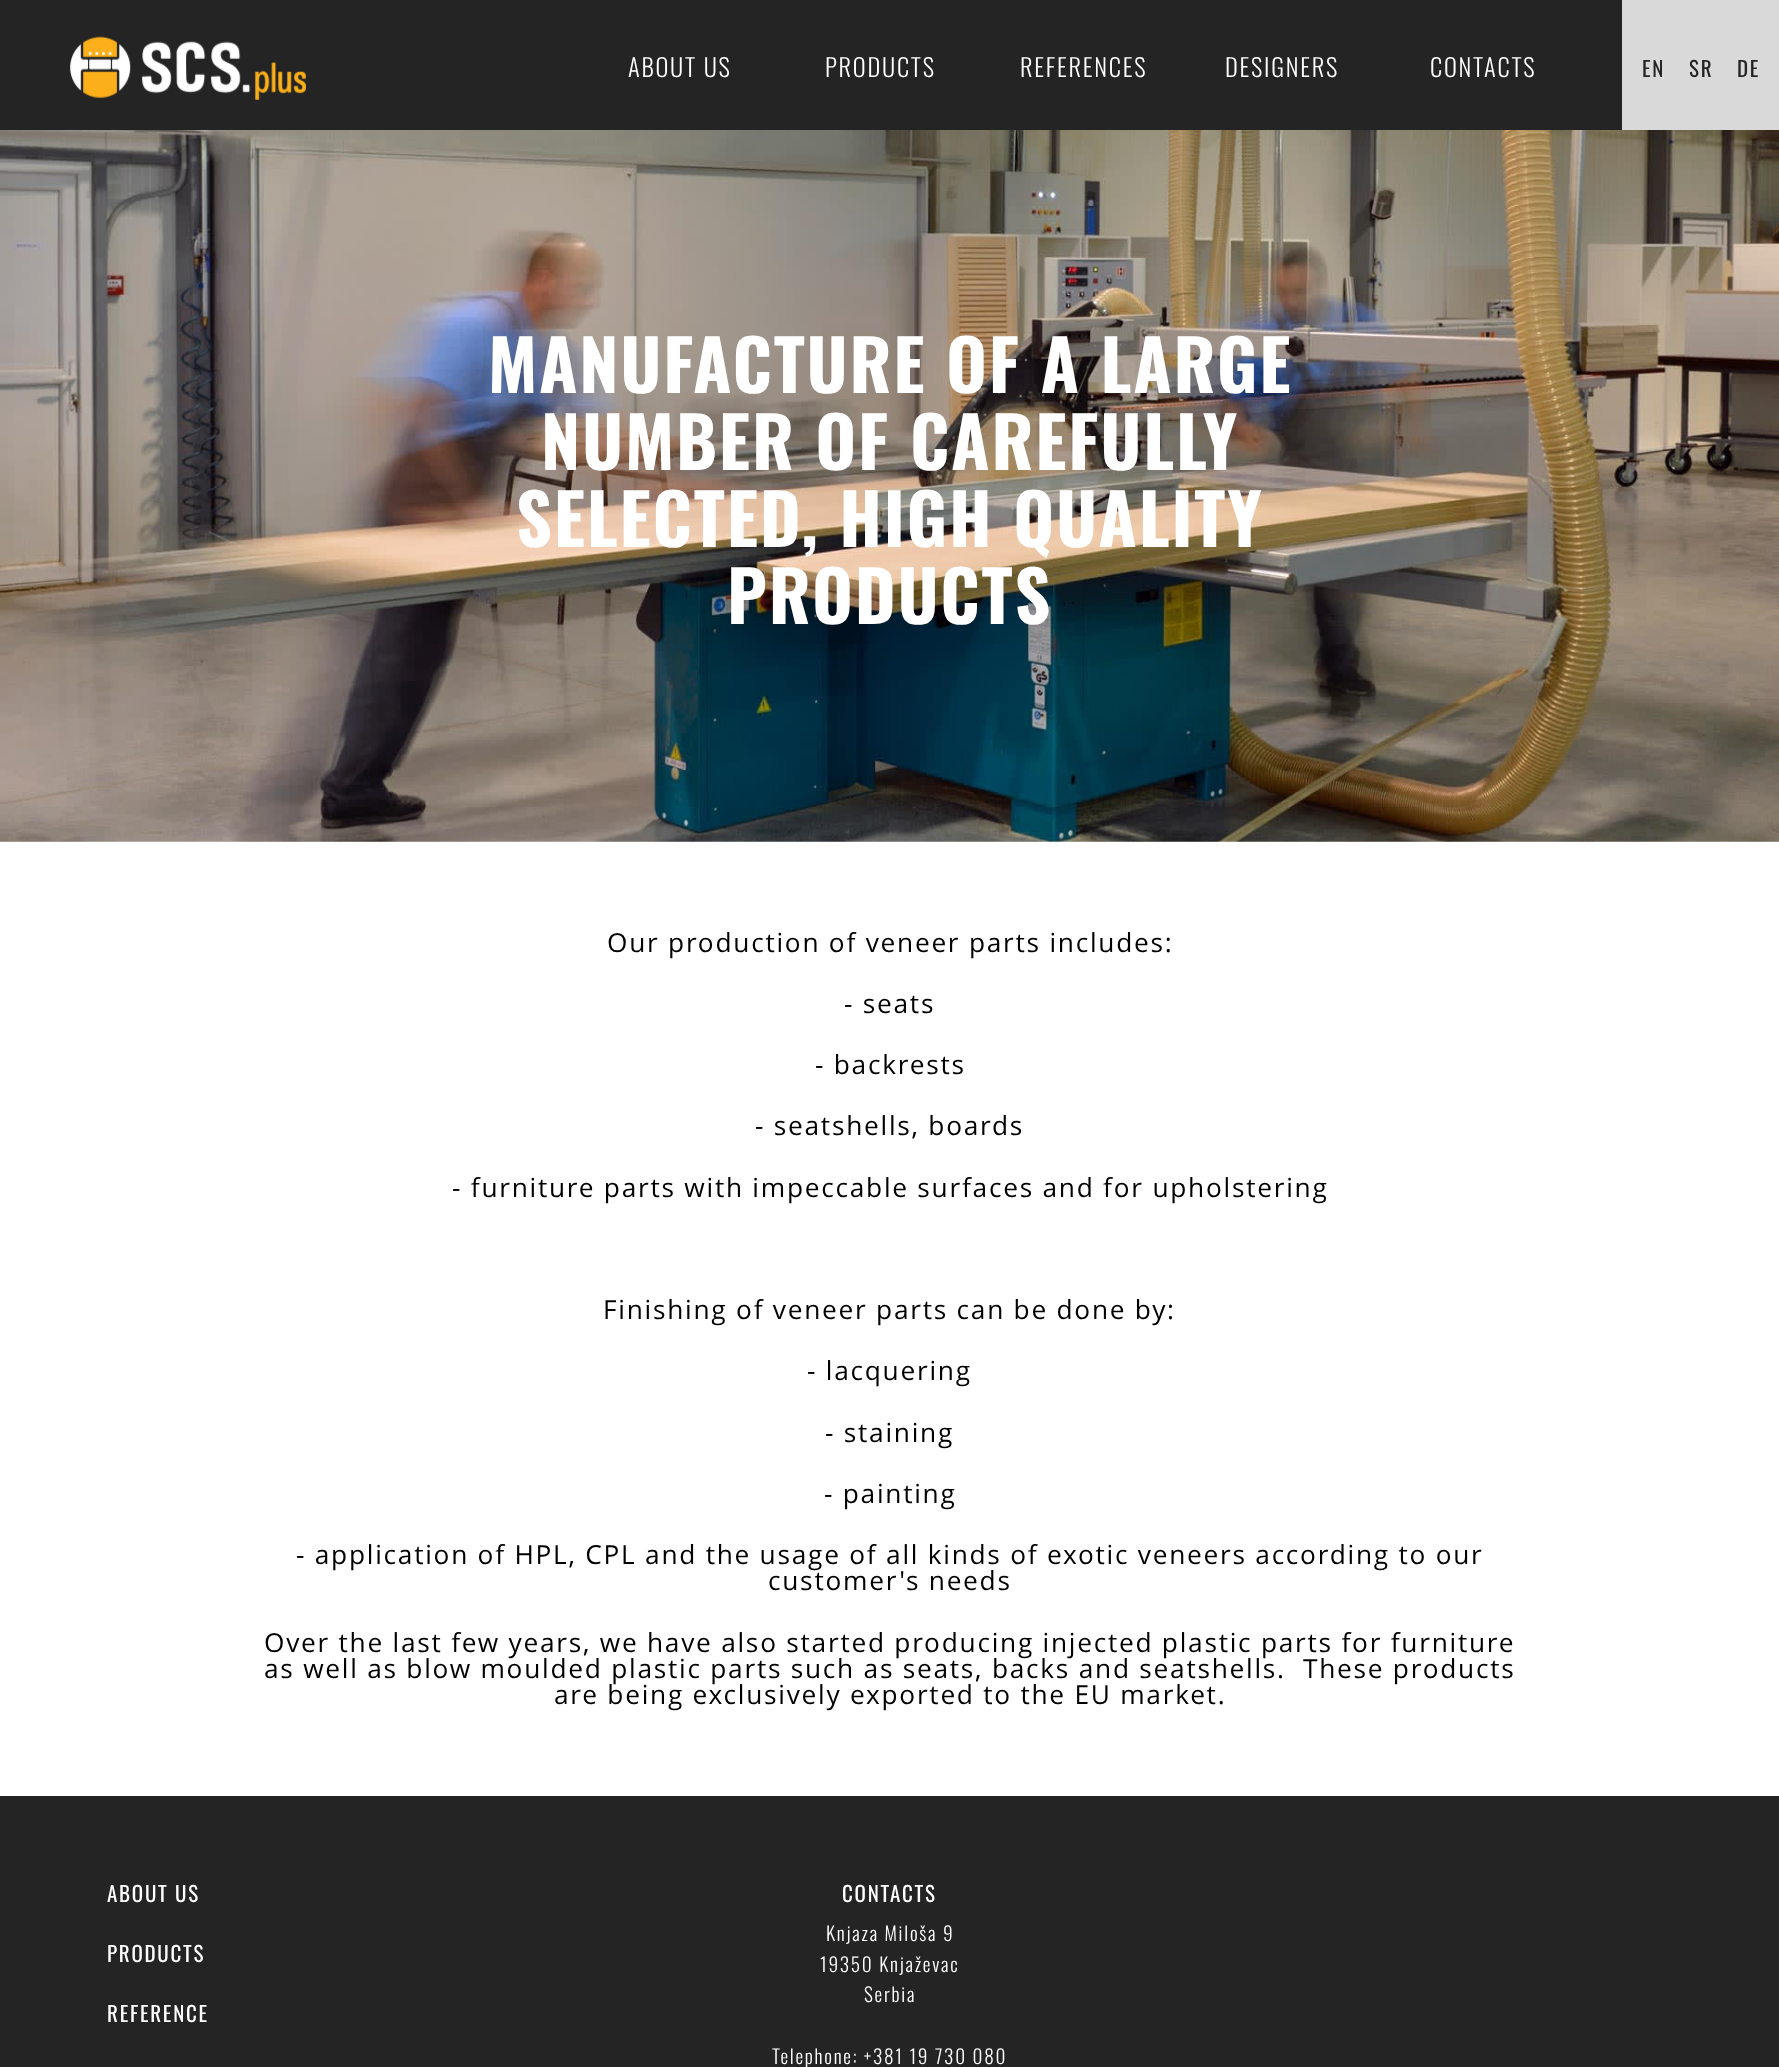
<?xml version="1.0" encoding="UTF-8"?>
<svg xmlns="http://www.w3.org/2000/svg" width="1779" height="2067">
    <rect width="100%" height="100%" fill="#FFFFFF"/>
    <rect x="0" y="0" width="1622" height="130" fill="#242424"/>
    <image x="70" y="36" width="236" height="64" href="img_01.png"/>
    <text x="628" y="77" font-family="Oswald" font-size="24.5" font-weight="300" letter-spacing="1.75" fill="#FFFFFF">ABOUT US</text>
    <text x="825" y="77" font-family="Oswald" font-size="24.5" font-weight="300" letter-spacing="1.75" fill="#FFFFFF">PRODUCTS</text>
    <text x="1020" y="77" font-family="Oswald" font-size="24.5" font-weight="300" letter-spacing="1.75" fill="#FFFFFF">REFERENCES</text>
    <text x="1225" y="77" font-family="Oswald" font-size="24.5" font-weight="300" letter-spacing="1.75" fill="#FFFFFF">DESIGNERS</text>
    <text x="1430" y="77" font-family="Oswald" font-size="24.5" font-weight="300" letter-spacing="1.75" fill="#FFFFFF">CONTACTS</text>
    <rect x="1622" y="0" width="157" height="130" fill="#D9D9D9"/>
    <text x="1642" y="77" font-family="Oswald" font-size="21" letter-spacing="1.75" fill="#242424">EN</text>
    <text x="1689" y="77" font-family="Oswald" font-size="21" letter-spacing="1.75" fill="#242424">SR</text>
    <text x="1737" y="77" font-family="Oswald" font-size="21" letter-spacing="1.75" fill="#242424">DE</text>
    <image x="0" y="130" width="1779" height="712" href="img_02.png"/>
    <text x="488" y="393" font-family="Oswald" font-size="70" font-weight="700" letter-spacing="1.75" fill="#FFFFFF">MANUFACTURE OF A LARGE</text>
    <text x="541" y="470" font-family="Oswald" font-size="70" font-weight="700" letter-spacing="1.75" fill="#FFFFFF">NUMBER OF CAREFULLY</text>
    <text x="516" y="547" font-family="Oswald" font-size="70" font-weight="700" letter-spacing="1.75" fill="#FFFFFF">SELECTED, HIGH QUALITY</text>
    <text x="727" y="624" font-family="Oswald" font-size="70" font-weight="700" letter-spacing="1.75" fill="#FFFFFF">PRODUCTS</text>
    <text x="607" y="952" font-family="Open Sans" font-size="26.25" letter-spacing="1.75" fill="#000000">Our production of veneer parts includes:</text>
    <text x="844" y="1013" font-family="Open Sans" font-size="26.25" letter-spacing="1.75" fill="#000000">- seats</text>
    <text x="815" y="1074" font-family="Open Sans" font-size="26.25" letter-spacing="1.75" fill="#000000">- backrests</text>
    <text x="755" y="1135" font-family="Open Sans" font-size="26.25" letter-spacing="1.75" fill="#000000">- seatshells, boards</text>
    <text x="452" y="1197" font-family="Open Sans" font-size="26.25" letter-spacing="1.75" fill="#000000">- furniture parts with impeccable surfaces and for upholstering</text>
    <text x="603" y="1319" font-family="Open Sans" font-size="26.25" letter-spacing="1.75" fill="#000000">Finishing of veneer parts can be done by:</text>
    <text x="807" y="1380" font-family="Open Sans" font-size="26.25" letter-spacing="1.75" fill="#000000">- lacquering</text>
    <text x="825" y="1442" font-family="Open Sans" font-size="26.25" letter-spacing="1.75" fill="#000000">- staining</text>
    <text x="824" y="1503" font-family="Open Sans" font-size="26.25" letter-spacing="1.75" fill="#000000">- painting</text>
    <text x="296" y="1564" font-family="Open Sans" font-size="26.25" letter-spacing="1.75" fill="#000000">- application of HPL, CPL and the usage of all kinds of exotic veneers according to our</text>
    <text x="768" y="1590" font-family="Open Sans" font-size="26.25" letter-spacing="1.75" fill="#000000">customer's needs</text>
    <text font-family="Open Sans" font-size="26.25" letter-spacing="1.75" fill="#000000" xml:space="preserve"><tspan x="264" y="1652">Over the last few years, we have also started producing injected plastic parts for furniture</tspan><tspan x="264" y="1678">as well as blow moulded plastic parts such as seats, backs and seatshells.  These products</tspan></text>
    <text x="554" y="1704" font-family="Open Sans" font-size="26.25" letter-spacing="1.75" fill="#000000">are being exclusively exported to the EU market.</text>
    <rect x="0" y="1796" width="1779" height="271" fill="#242424"/>
    <text x="107" y="1902" font-family="Oswald" font-size="21" letter-spacing="1.75" fill="#FFFFFF">ABOUT US</text>
    <text x="107" y="1962" font-family="Oswald" font-size="21" letter-spacing="1.75" fill="#FFFFFF">PRODUCTS</text>
    <text x="107" y="2022" font-family="Oswald" font-size="21" letter-spacing="1.75" fill="#FFFFFF">REFERENCE</text>
    <text x="842" y="1902" font-family="Oswald" font-size="21" letter-spacing="1.75" fill="#FFFFFF">CONTACTS</text>
    <text x="826" y="1941" font-family="Oswald" font-size="19.25" font-weight="300" letter-spacing="1.75" fill="#FFFFFF">Knjaza Miloša 9</text>
    <text x="820" y="1972" font-family="Oswald" font-size="19.25" font-weight="300" letter-spacing="1.75" fill="#FFFFFF">19350 Knjaževac</text>
    <text x="864" y="2002" font-family="Oswald" font-size="19.25" font-weight="300" letter-spacing="1.75" fill="#FFFFFF">Serbia</text>
    <text x="772" y="2064" font-family="Oswald" font-size="19.25" font-weight="300" letter-spacing="1.75" fill="#FFFFFF">Telephone: +381 19 730 080</text>
</svg>
